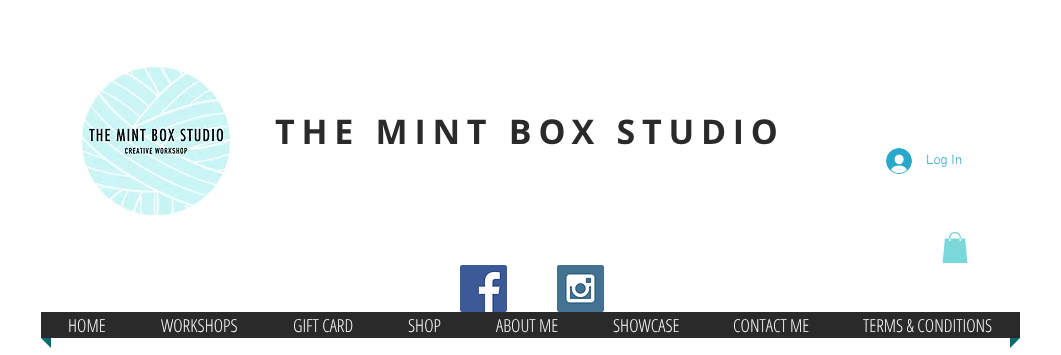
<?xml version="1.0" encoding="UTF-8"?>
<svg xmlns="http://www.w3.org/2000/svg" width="1061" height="355">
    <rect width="100%" height="100%" fill="#FFFFFF"/>
    <image x="80" y="66" width="153" height="150" href="img_01.png"/>
    <text x="275" y="144" font-family="Open Sans" font-size="34" font-weight="700" letter-spacing="6.75" fill="#2A2A2A">THE MINT BOX STUDIO</text>
    <image x="886" y="148" width="26" height="26" href="img_02.png"/>
    <text x="926" y="164" font-family="'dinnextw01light'" font-size="14" font-weight="300" fill="#2AA8CC">Log In</text>
    <image x="942" y="232" width="26" height="32" href="img_03.png"/>
    <image x="460" y="265" width="47" height="47" href="img_04.png"/>
    <image x="557" y="265" width="47" height="47" href="img_05.png"/>
    <rect x="41" y="312" width="979" height="26" fill="#2A2A2A"/>
    <text x="68" y="332" font-family="Open Sans Condensed" font-size="18" font-weight="300" fill="#FFFFFF">HOME</text>
    <text x="161" y="332" font-family="Open Sans Condensed" font-size="18" font-weight="300" fill="#FFFFFF">WORKSHOPS</text>
    <text x="293" y="332" font-family="Open Sans Condensed" font-size="18" font-weight="300" fill="#FFFFFF">GIFT CARD</text>
    <text x="408" y="332" font-family="Open Sans Condensed" font-size="18" font-weight="300" fill="#FFFFFF">SHOP</text>
    <text x="496" y="332" font-family="Open Sans Condensed" font-size="18" font-weight="300" fill="#FFFFFF">ABOUT ME</text>
    <text x="613" y="332" font-family="Open Sans Condensed" font-size="18" font-weight="300" fill="#FFFFFF">SHOWCASE</text>
    <text x="733" y="332" font-family="Open Sans Condensed" font-size="18" font-weight="300" fill="#FFFFFF">CONTACT ME</text>
    <text x="863" y="332" font-family="Open Sans Condensed" font-size="18" font-weight="300" fill="#FFFFFF">TERMS &amp; CONDITIONS</text>
    <path d="M 41 338 H 51 V 348 Z" fill="#006C6D"/>
    <path d="M 1010 338 H 1020 L 1010 348 Z" fill="#006C6D"/>
</svg>
